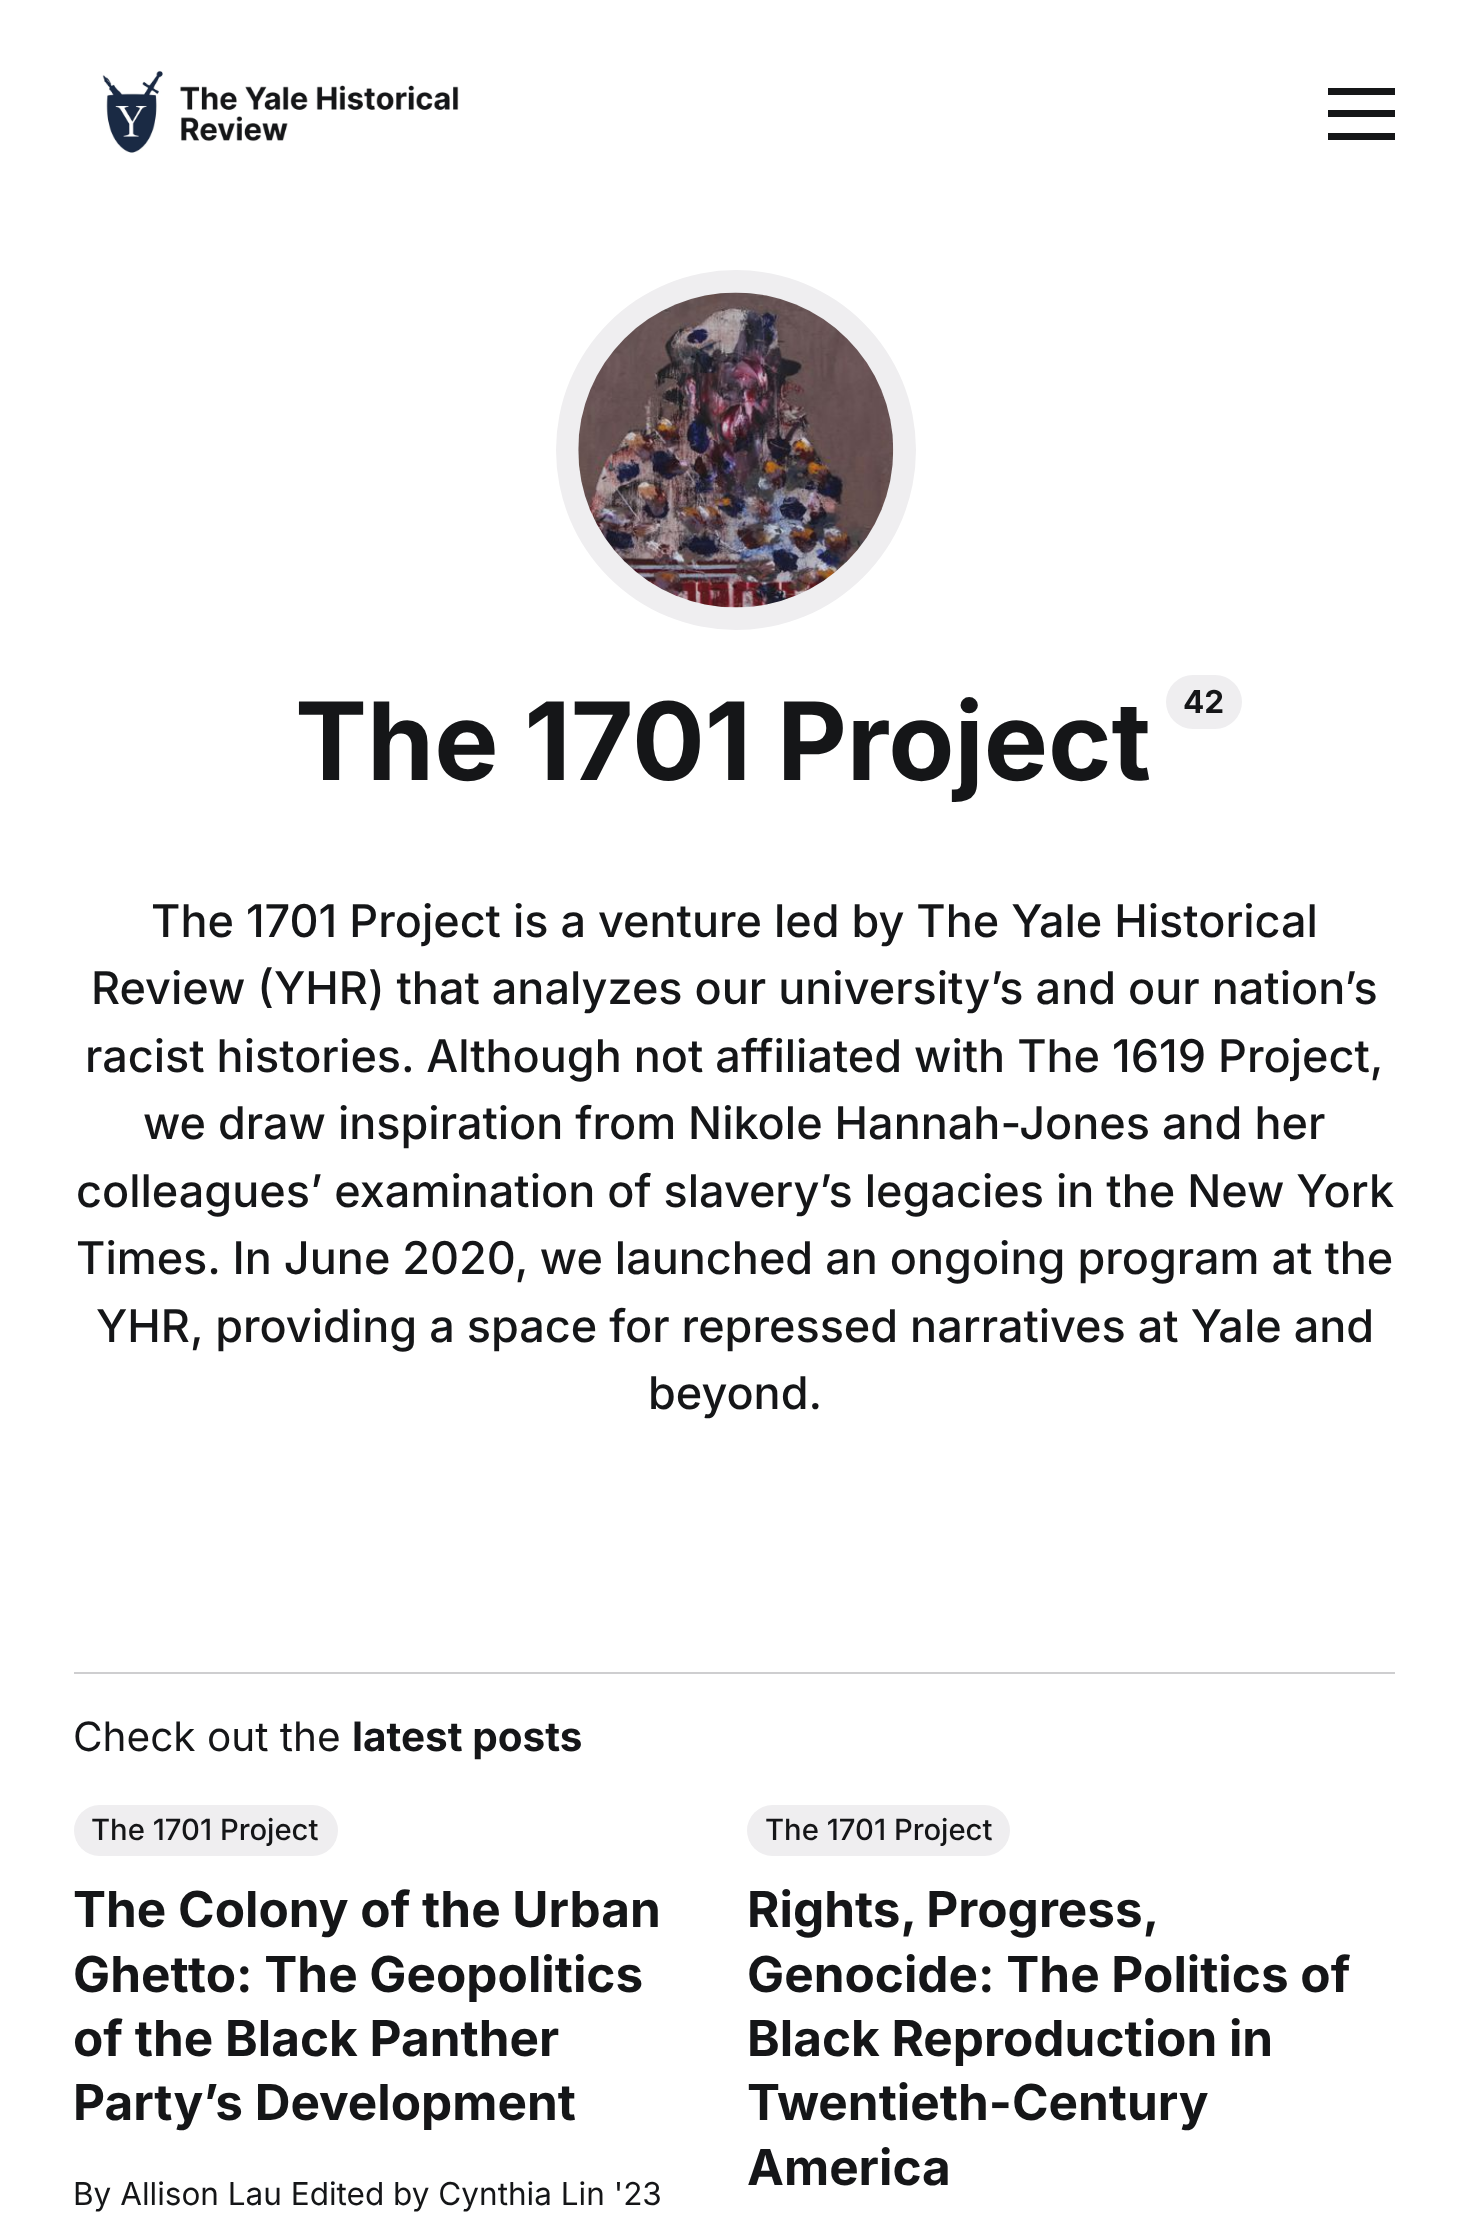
<?xml version="1.0" encoding="UTF-8"?>
<svg xmlns="http://www.w3.org/2000/svg" width="1469" height="2227">
    <rect width="100%" height="100%" fill="#FFFFFF"/>
    <image x="102" y="70" width="357" height="83" href="img_01.png"/>
    <rect x="1328" y="88" width="67" height="7" fill="#151618"/>
    <rect x="1328" y="110" width="67" height="7" fill="#151618"/>
    <rect x="1328" y="133" width="67" height="7" fill="#151618"/>
    <circle cx="736" cy="450" r="180" fill="#EFEEF0"/>
    <image x="578" y="292" width="316" height="316" href="img_02.png"/>
    <text x="295" y="780" font-family="Inter" font-size="108" font-weight="700" fill="#151618">The 1701 Project</text>
    <rect x="1166" y="675" width="76" height="54" rx="27" fill="#EFEEF0"/>
    <text x="1183" y="713" font-family="Inter" font-size="31.5" font-weight="700" fill="#151618">42</text>
    <text x="151" y="937" font-family="Inter" font-size="45" font-weight="500" fill="#151618">The 1701 Project is a venture led by The Yale Historical</text>
    <text x="91" y="1004" font-family="Inter" font-size="45" font-weight="500" fill="#151618">Review (YHR) that analyzes our university’s and our nation’s</text>
    <text x="85" y="1072" font-family="Inter" font-size="45" font-weight="500" fill="#151618">racist histories. Although not affiliated with The 1619 Project,</text>
    <text x="143" y="1139" font-family="Inter" font-size="45" font-weight="500" fill="#151618">we draw inspiration from Nikole Hannah-Jones and her</text>
    <text font-family="Inter" font-size="45" font-weight="500" fill="#151618">
        <tspan x="76" y="1207">colleagues’ examination of slavery’s legacies in the New York</tspan>
        <tspan x="76" y="1274">Times. In June 2020, we launched an ongoing program at the</tspan>
    </text>
    <text x="96" y="1342" font-family="Inter" font-size="45" font-weight="500" fill="#151618">YHR, providing a space for repressed narratives at Yale and</text>
    <text x="648" y="1409" font-family="Inter" font-size="45" font-weight="500" fill="#151618">beyond.</text>
    <rect x="74" y="1672" width="1321" height="2" fill="#CECED0"/>
    <text x="73" y="1751" font-family="Inter" font-size="40.5" fill="#151618">Check out the</text>
    <text x="352" y="1751" font-family="Inter" font-size="40.5" font-weight="700" fill="#151618">latest posts</text>
    <rect x="74" y="1805" width="264" height="51" rx="25.5" fill="#EFEEF0"/>
    <text x="91" y="1840" font-family="Inter" font-size="29.25" font-weight="500" fill="#151618">The 1701 Project</text>
    <text font-family="Inter" font-size="49.5" font-weight="700" fill="#151618">
        <tspan x="73" y="1927">The Colony of the Urban</tspan>
        <tspan x="73" y="1992">Ghetto: The Geopolitics</tspan>
        <tspan x="73" y="2056">of the Black Panther</tspan>
        <tspan x="73" y="2120">Party’s Development</tspan>
    </text>
    <text x="73" y="2205" font-family="Inter" font-size="31.5" fill="#151618">By Allison Lau Edited by Cynthia Lin '23</text>
    <rect x="747" y="1805" width="263" height="51" rx="25.5" fill="#EFEEF0"/>
    <text x="765" y="1840" font-family="Inter" font-size="29.25" font-weight="500" fill="#151618">The 1701 Project</text>
    <text font-family="Inter" font-size="49.5" font-weight="700" fill="#151618">
        <tspan x="747" y="1927" word-spacing="-1">Rights, Progress,</tspan>
        <tspan x="747" y="1992">Genocide: The Politics of</tspan>
        <tspan x="747" y="2056">Black Reproduction in</tspan>
        <tspan x="747" y="2120">Twentieth-Century</tspan>
        <tspan x="747" y="2185">America</tspan>
    </text>
</svg>
